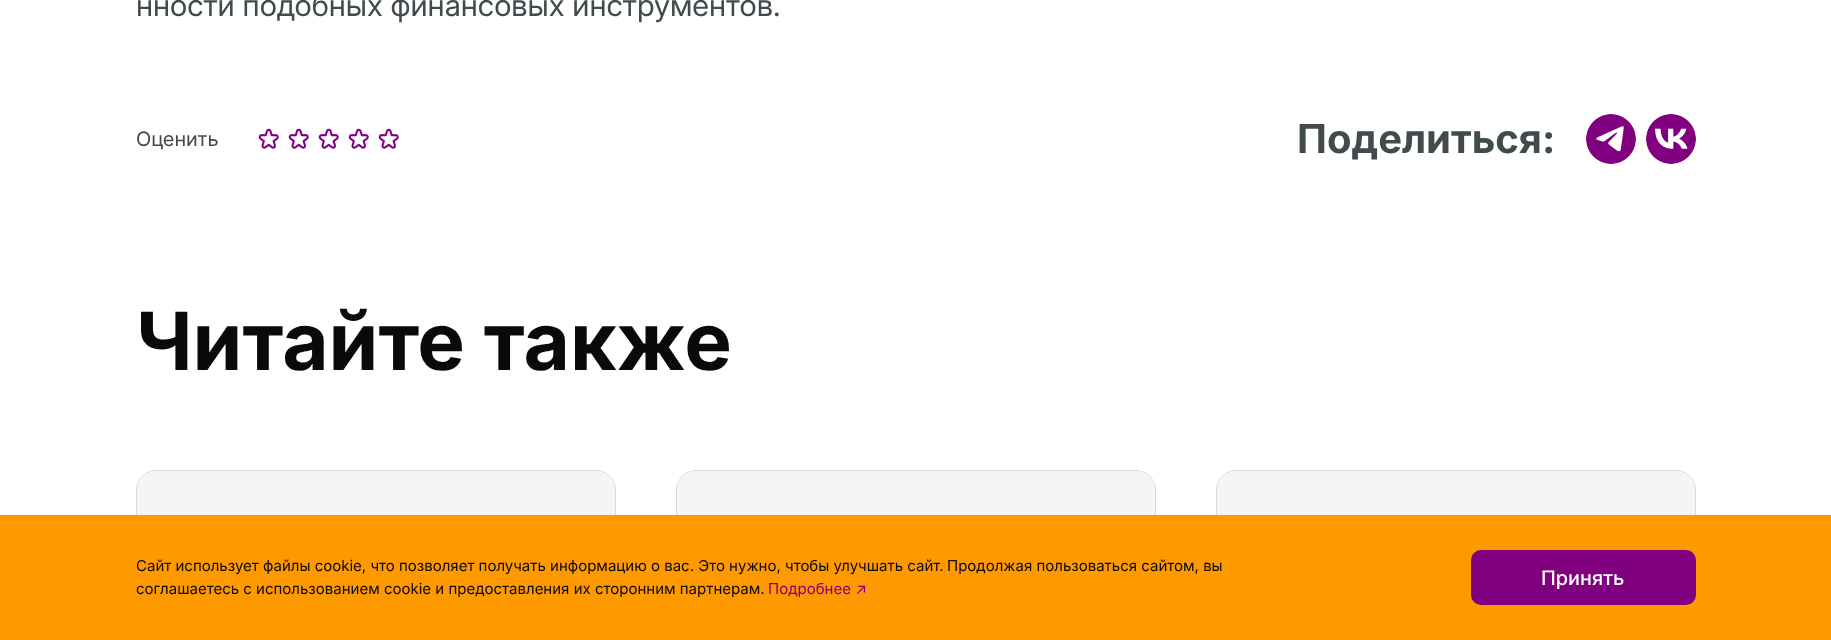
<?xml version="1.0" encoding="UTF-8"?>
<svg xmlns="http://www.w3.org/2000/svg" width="1831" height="640">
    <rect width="100%" height="100%" fill="#FFFFFF"/>
    <text x="136" y="16" font-family="Inter" font-size="30" fill="#414A4C">нности подобных финансовых инструментов.</text>
    <text x="136" y="146" font-family="'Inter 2'" font-size="20" fill="#414A4C">Оценить</text>
    <image x="258" y="128" width="21" height="21" href="img_01.png"/>
    <image x="288" y="128" width="21" height="21" href="img_01.png"/>
    <image x="318" y="128" width="21" height="21" href="img_01.png"/>
    <image x="348" y="128" width="21" height="21" href="img_01.png"/>
    <image x="378" y="128" width="21" height="21" href="img_01.png"/>
    <text x="1297" y="153" font-family="Inter" font-size="40" font-weight="700" fill="#414A4C">Поделиться:</text>
    <image x="1586" y="114" width="50" height="50" href="img_02.png"/>
    <image x="1646" y="114" width="50" height="50" href="img_03.png"/>
    <text x="136" y="370" font-family="Inter" font-size="80" font-weight="700" fill="#0A0A0A">Читайте также</text>
    <rect x="136.5" y="470.5" width="479" height="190" rx="19.5" fill="#F5F5F5" stroke="#DCDCDC"/>
    <rect x="676.5" y="470.5" width="479" height="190" rx="19.5" fill="#F5F5F5" stroke="#DCDCDC"/>
    <rect x="1216.5" y="470.5" width="479" height="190" rx="19.5" fill="#F5F5F5" stroke="#DCDCDC"/>
    <rect x="0" y="515" width="1831" height="125" fill="#FF9900"/>
    <text x="136" y="571" font-family="'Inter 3'" font-size="15" fill="#0A0A0A">Сайт использует файлы cookie, что позволяет получать информацию о вас. Это нужно, чтобы улучшать сайт.</text>
    <text x="947" y="571" font-family="'Inter 3'" font-size="15" fill="#0A0A0A">Продолжая пользоваться сайтом, вы</text>
    <text x="136" y="594" font-family="'Inter 3'" font-size="15" fill="#0A0A0A">соглашаетесь с использованием cookie и предоставления их сторонним партнерам.</text>
    <text x="768" y="594" font-family="'Inter 3'" font-size="15" fill="#800080">Подробнее ↗</text>
    <rect x="1472.5" y="551.5" width="222" height="52" rx="8.5" fill="#800080" stroke="#800080" stroke-width="3"/>
    <text x="1541" y="585" font-family="Inter" font-size="20" font-weight="500" fill="#FFFFFF">Принять</text>
</svg>
